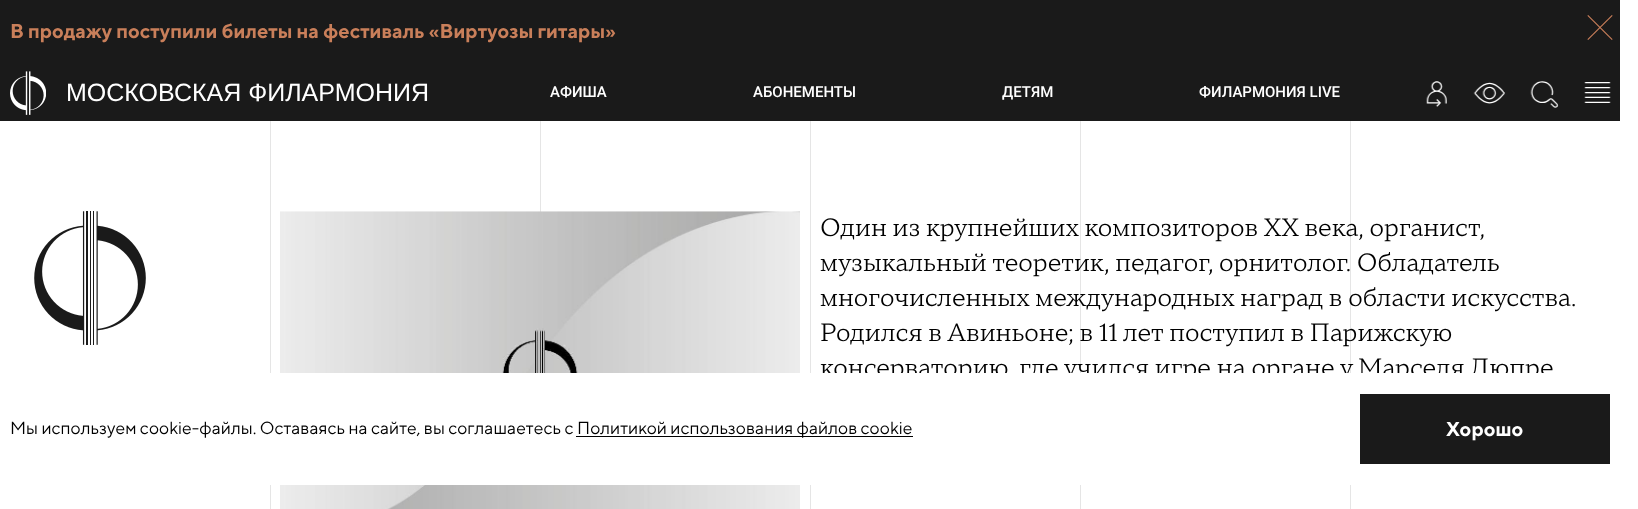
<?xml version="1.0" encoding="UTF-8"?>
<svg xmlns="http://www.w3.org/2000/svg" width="1638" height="509">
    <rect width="100%" height="100%" fill="#FFFFFF"/>
    <rect x="0" y="0" width="1620" height="121" fill="#1A1A1A"/>
    <text x="10" y="38" font-family="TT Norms" font-size="20" font-weight="700" fill="#C97F5A">В продажу поступили билеты на фестиваль «Виртуозы гитары»</text>
    <image x="1587" y="15" width="26" height="25" href="img_01.png"/>
    <image x="10" y="71" width="36" height="44" href="img_02.png"/>
    <text x="66" y="101" font-family="Liberation Sans" font-size="25" fill="#FFFFFF">МОСКОВСКАЯ ФИЛАРМОНИЯ</text>
    <text x="550" y="97" font-family="Roboto" font-size="15" font-weight="500" fill="#FFFFFF">АФИША</text>
    <text x="753" y="97" font-family="Roboto" font-size="15" font-weight="500" fill="#FFFFFF">АБОНЕМЕНТЫ</text>
    <text x="1002" y="97" font-family="Roboto" font-size="15" font-weight="500" fill="#FFFFFF">ДЕТЯМ</text>
    <text x="1199" y="97" font-family="Roboto" font-size="15" font-weight="500" fill="#FFFFFF">ФИЛАРМОНИЯ LIVE</text>
    <image x="1426" y="81" width="21" height="26" href="img_03.png"/>
    <image x="1473" y="82" width="32" height="22" href="img_04.png"/>
    <image x="1530" y="81" width="29" height="27" href="img_05.png"/>
    <image x="1584" y="82" width="27" height="21" href="img_06.png"/>
    <rect x="270" y="121" width="1" height="388" fill="#E5E5E5"/>
    <rect x="540" y="121" width="1" height="91" fill="#E5E5E5"/>
    <rect x="810" y="121" width="1" height="388" fill="#E5E5E5"/>
    <rect x="1080" y="121" width="1" height="388" fill="#E5E5E5"/>
    <rect x="1350" y="121" width="1" height="388" fill="#E5E5E5"/>
    <image x="34" y="211" width="112" height="134" href="img_07.png"/>
    <image x="280" y="211" width="520" height="298" href="img_08.png"/>
    <text font-family="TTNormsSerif" font-size="25" fill="#000000">
        <tspan x="820" y="236">Один из крупнейших композиторов ХХ века, органист,</tspan>
        <tspan x="820" y="271">музыкальный теоретик, педагог, орнитолог. Обладатель</tspan>
        <tspan x="820" y="306">многочисленных международных наград в области искусства.</tspan>
        <tspan x="820" y="341">Родился в Авиньоне; в 11 лет поступил в Парижскую</tspan>
        <tspan x="820" y="376">консерваторию, где учился игре на органе у Марселя Дюпре</tspan>
    </text>
    <rect x="270" y="373" width="1284" height="112" fill="#FFFFFF"/>
    <text x="10" y="434" font-family="TT Norms" font-size="17.5" fill="#000000">Мы используем cookie-файлы. Оставаясь на сайте, вы соглашаетесь с</text>
    <rect x="576" y="436" width="337" height="1" fill="#000000"/>
    <text x="577" y="434" font-family="TT Norms" font-size="17.5" fill="#000000">Политикой использования файлов cookie</text>
    <rect x="1360" y="394" width="250" height="70" fill="#1A1A1A"/>
    <text x="1446" y="436" font-family="TT Norms" font-size="20" font-weight="700" fill="#FFFFFF">Хорошо</text>
</svg>
